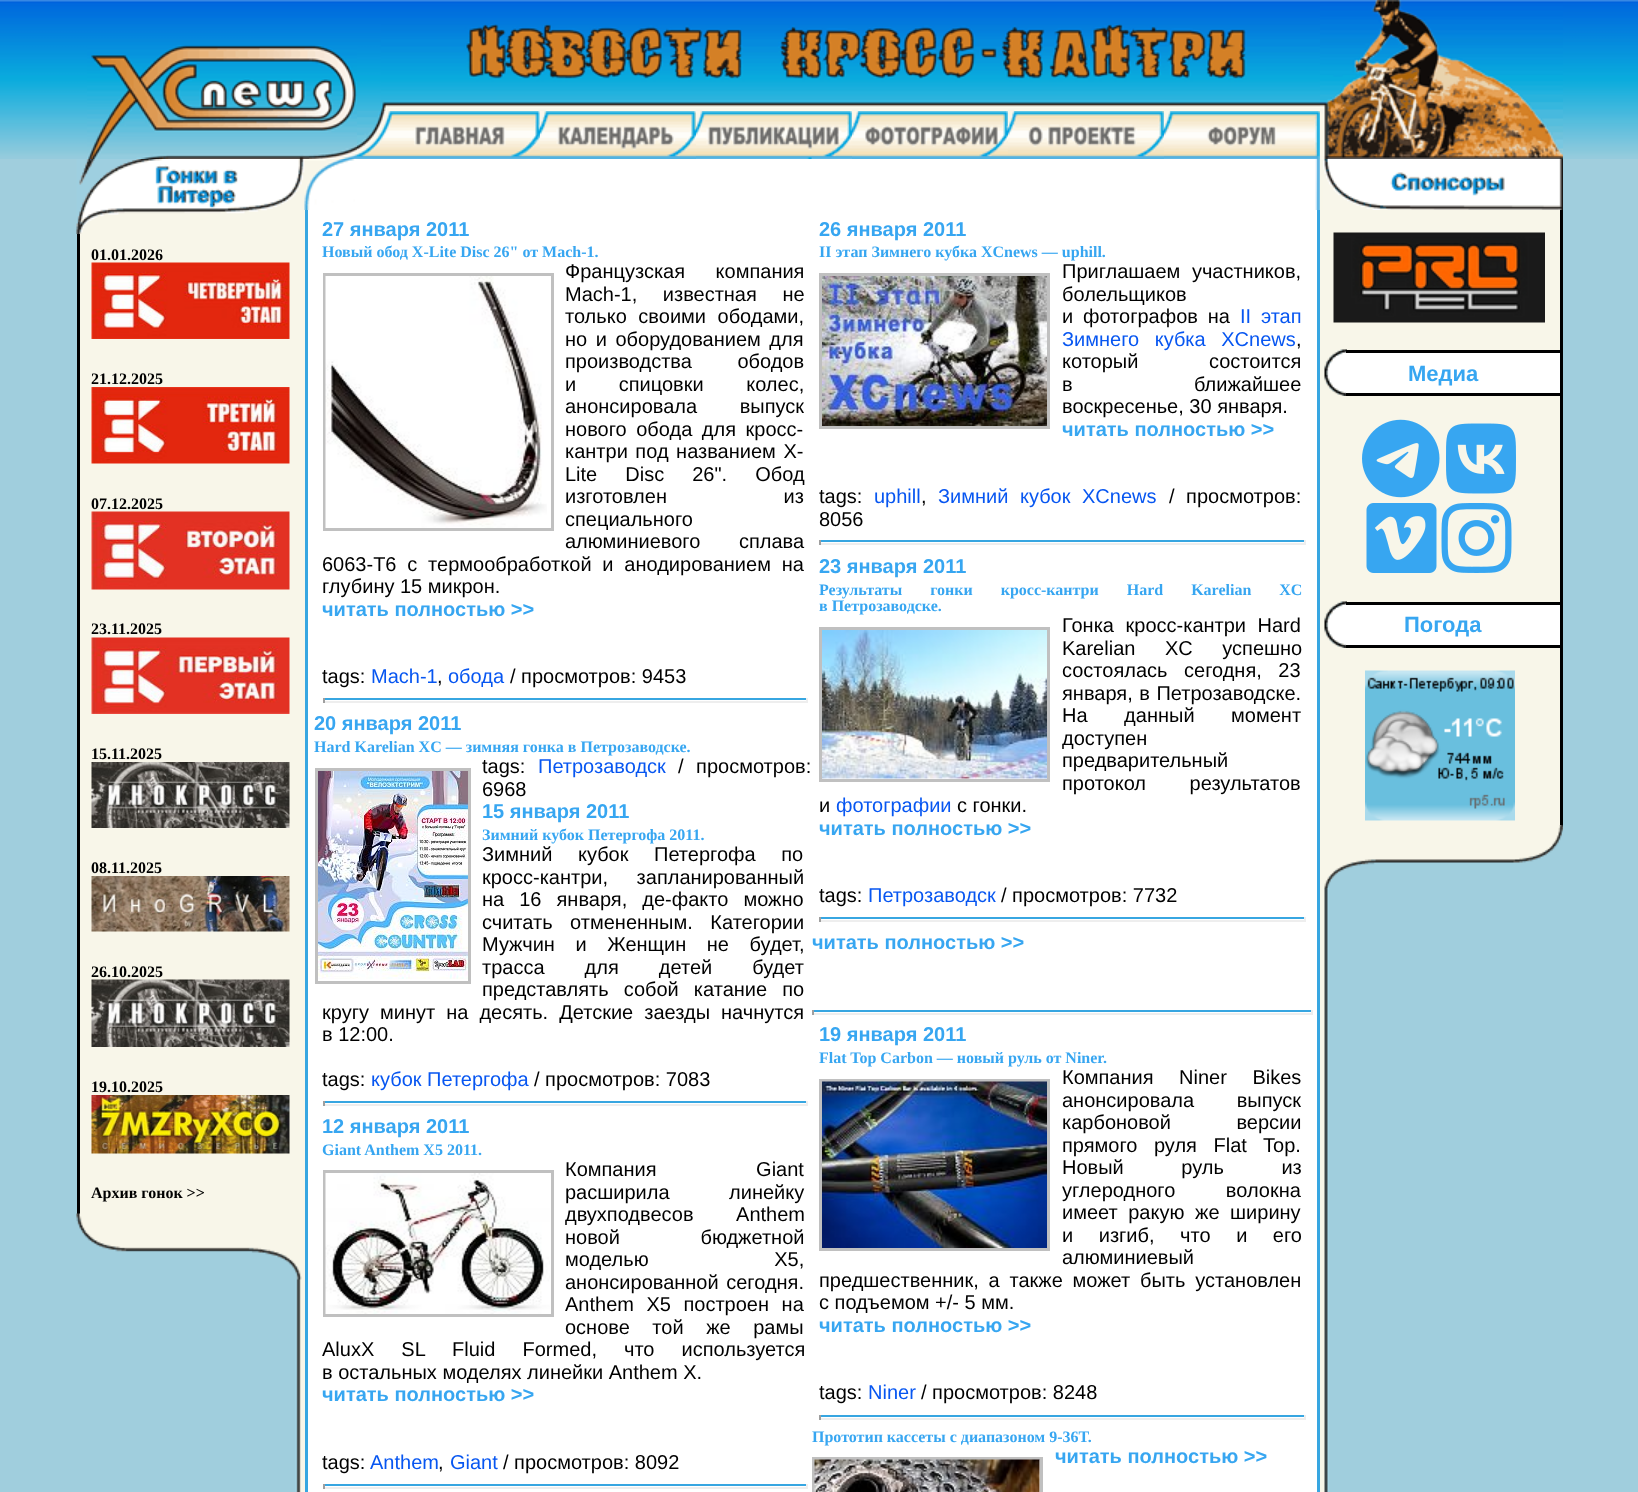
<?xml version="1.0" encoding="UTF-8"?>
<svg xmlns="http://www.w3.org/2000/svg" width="1638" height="1492">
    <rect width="100%" height="100%" fill="#FFFFFF"/>
    <image x="0" y="0" width="1638" height="159" href="img_01.png"/>
    <image x="87" y="45" width="270" height="114" href="img_02.png"/>
    <image x="381" y="24" width="939" height="87" href="img_03.png"/>
    <image x="1320" y="0" width="243" height="159" href="img_04.png"/>
    <image x="357" y="111" width="183" height="48" href="img_05.png"/>
    <image x="540" y="111" width="156" height="48" href="img_06.png"/>
    <image x="696" y="111" width="156" height="48" href="img_07.png"/>
    <image x="852" y="111" width="156" height="48" href="img_08.png"/>
    <image x="1008" y="111" width="156" height="48" href="img_09.png"/>
    <image x="1164" y="111" width="156" height="48" href="img_10.png"/>
    <rect x="0" y="159" width="1638" height="1333" fill="#A0CEDD"/>
    <rect x="301" y="159" width="4" height="1333" fill="#F8F6E9"/>
    <image x="77" y="1279" width="224" height="213" href="img_11.png"/>
    <image x="76" y="159" width="229" height="75" href="img_12.png"/>
    <rect x="80" y="234" width="221" height="980" fill="#F8F6E9"/>
    <rect x="77" y="234" width="3" height="980" fill="#000000"/>
    <text x="91" y="260" font-family="Liberation Serif" font-size="16" font-weight="700" fill="#000000">01.01.2026</text>
    <image x="91" y="262" width="199" height="77" href="img_13.png"/>
    <text x="91" y="384" font-family="Liberation Serif" font-size="16" font-weight="700" fill="#000000">21.12.2025</text>
    <image x="91" y="387" width="199" height="77" href="img_14.png"/>
    <text x="91" y="509" font-family="Liberation Serif" font-size="16" font-weight="700" fill="#000000">07.12.2025</text>
    <image x="91" y="511" width="199" height="79" href="img_15.png"/>
    <text x="91" y="634" font-family="Liberation Serif" font-size="16" font-weight="700" fill="#000000">23.11.2025</text>
    <image x="91" y="637" width="199" height="77" href="img_16.png"/>
    <text x="91" y="759" font-family="Liberation Serif" font-size="16" font-weight="700" fill="#000000">15.11.2025</text>
    <image x="91" y="762" width="199" height="66" href="img_17.png"/>
    <text x="91" y="873" font-family="Liberation Serif" font-size="16" font-weight="700" fill="#000000">08.11.2025</text>
    <image x="91" y="876" width="199" height="56" href="img_18.png"/>
    <text x="91" y="977" font-family="Liberation Serif" font-size="16" font-weight="700" fill="#000000">26.10.2025</text>
    <image x="91" y="979" width="199" height="68" href="img_19.png"/>
    <text x="91" y="1092" font-family="Liberation Serif" font-size="16" font-weight="700" fill="#000000">19.10.2025</text>
    <image x="91" y="1095" width="199" height="59" href="img_20.png"/>
    <text x="91" y="1198" font-family="Liberation Serif" font-size="16" font-weight="700" fill="#000000">Архив гонок &gt;&gt;</text>
    <image x="76" y="1213" width="226" height="67" href="img_21.png"/>
    <rect x="308" y="159" width="1009" height="1333" fill="#FFFFFF"/>
    <image x="304" y="159" width="51" height="51" href="img_22.png"/>
    <image x="1315" y="159" width="5" height="51" href="img_23.png"/>
    <rect x="1317" y="210" width="3" height="1282" fill="#37A6E1"/>
    <rect x="305" y="210" width="3" height="1282" fill="#37A6E1"/>
    <text x="322" y="236" font-family="Liberation Sans" font-size="20" font-weight="700" fill="#37A6F1">27 января 2011</text>
    <text x="322" y="257" font-family="Liberation Serif" font-size="16" font-weight="700" fill="#37A6F1">Новый обод X-Lite Disc 26" от Mach-1.</text>
    <rect x="324.5" y="274.5" width="228" height="255" fill="none" stroke="#C0C0C0" stroke-width="3"/>
    <image x="325" y="276" width="222" height="252" href="img_24.png"/>
    <text font-family="Liberation Sans" font-size="20" fill="#000000">
        <tspan x="565" y="278" word-spacing="25">Французская компания</tspan>
        <tspan x="565" y="301" word-spacing="20">Mach-1, известная не</tspan>
        <tspan x="565" y="323" word-spacing="6">только своими ободами,</tspan>
        <tspan x="565" y="346" word-spacing="3">но и оборудованием для</tspan>
        <tspan x="565" y="368" word-spacing="40">производства ободов</tspan>
        <tspan x="565" y="391" word-spacing="37">и спицовки колес,</tspan>
        <tspan x="565" y="413" word-spacing="37">анонсировала выпуск</tspan>
        <tspan x="565" y="436" word-spacing="4">нового обода для кросс-</tspan>
        <tspan x="565" y="458" word-spacing="2">кантри под названием X-</tspan>
        <tspan x="565" y="481" word-spacing="22.5">Lite Disc 26". Обод</tspan>
        <tspan x="565" y="503" word-spacing="111">изготовлен из</tspan>
        <tspan x="565" y="526">специального</tspan>
        <tspan x="565" y="548" word-spacing="33">алюминиевого сплава</tspan>
    </text>
    <text font-family="Liberation Sans" font-size="20" fill="#000000">
        <tspan x="322" y="571" word-spacing="5.25">6063-T6 с термообработкой и анодированием на</tspan>
        <tspan x="322" y="593">глубину 15 микрон.</tspan>
    </text>
    <text x="322" y="616" font-family="Liberation Sans" font-size="20" font-weight="700" fill="#37A6F1">читать полностью &gt;&gt;</text>
    <text x="322" y="683" font-family="Liberation Sans" font-size="20" fill="#000000">tags:</text>
    <text x="371" y="683" font-family="Liberation Sans" font-size="20" fill="#0756F1">Mach-1</text>
    <text x="437" y="683" font-family="Liberation Sans" font-size="20" fill="#000000">,</text>
    <text x="448" y="683" font-family="Liberation Sans" font-size="20" fill="#0756F1">обода</text>
    <text x="510" y="683" font-family="Liberation Sans" font-size="20" fill="#000000">/ просмотров: 9453</text>
    <rect x="323" y="698" width="484" height="2" fill="#37A6E1"/>
    <rect x="806" y="698" width="2" height="5" fill="#EEEEEE"/>
    <rect x="323" y="701" width="484" height="2" fill="#EEEEEE"/>
    <rect x="323" y="698" width="2" height="5" fill="#9F9F9F"/>
    <text x="314" y="730" font-family="Liberation Sans" font-size="20" font-weight="700" fill="#37A6F1">20 января 2011</text>
    <text x="314" y="752" font-family="Liberation Serif" font-size="16" font-weight="700" fill="#37A6F1">Hard Karelian XC — зимняя гонка в Петрозаводске.</text>
    <rect x="316.5" y="769.5" width="153" height="213" fill="none" stroke="#C0C0C0" stroke-width="3"/>
    <image x="318" y="771" width="150" height="208" href="img_25.png"/>
    <text x="482" y="773" font-family="Liberation Sans" font-size="20" fill="#000000">tags:</text>
    <text x="538" y="773" font-family="Liberation Sans" font-size="20" fill="#0756F1">Петрозаводск</text>
    <text x="678" y="773" word-spacing="7" font-family="Liberation Sans" font-size="20" fill="#000000">/ просмотров:</text>
    <text x="482" y="796" font-family="Liberation Sans" font-size="20" fill="#000000">6968</text>
    <text x="482" y="818" font-family="Liberation Sans" font-size="20" font-weight="700" fill="#37A6F1">15 января 2011</text>
    <text x="482" y="840" font-family="Liberation Serif" font-size="16" font-weight="700" fill="#37A6F1">Зимний кубок Петергофа 2011.</text>
    <text font-family="Liberation Sans" font-size="20" fill="#000000">
        <tspan x="482" y="861" word-spacing="20">Зимний кубок Петергофа по</tspan>
        <tspan x="482" y="884" word-spacing="23">кросс-кантри, запланированный</tspan>
        <tspan x="482" y="906" word-spacing="9.5">на 16 января, де-факто можно</tspan>
        <tspan x="482" y="929" word-spacing="12">считать отмененным. Категории</tspan>
        <tspan x="482" y="951" word-spacing="15">Мужчин и Женщин не будет,</tspan>
        <tspan x="482" y="974" word-spacing="34.5">трасса для детей будет</tspan>
        <tspan x="482" y="996" word-spacing="9.5">представлять собой катание по</tspan>
    </text>
    <text font-family="Liberation Sans" font-size="20" fill="#000000">
        <tspan x="322" y="1019" word-spacing="5.5">кругу минут на десять. Детские заезды начнутся</tspan>
        <tspan x="322" y="1041">в 12:00.</tspan>
    </text>
    <text x="322" y="1086" font-family="Liberation Sans" font-size="20" fill="#000000">tags:</text>
    <text x="371" y="1086" font-family="Liberation Sans" font-size="20" fill="#0756F1">кубок Петергофа</text>
    <text x="534" y="1086" font-family="Liberation Sans" font-size="20" fill="#000000">/ просмотров: 7083</text>
    <rect x="323" y="1101" width="484" height="2" fill="#37A6E1"/>
    <rect x="806" y="1101" width="2" height="5" fill="#EEEEEE"/>
    <rect x="323" y="1104" width="484" height="2" fill="#EEEEEE"/>
    <rect x="323" y="1101" width="2" height="5" fill="#9F9F9F"/>
    <text x="322" y="1133" font-family="Liberation Sans" font-size="20" font-weight="700" fill="#37A6F1">12 января 2011</text>
    <text x="322" y="1155" font-family="Liberation Serif" font-size="16" font-weight="700" fill="#37A6F1">Giant Anthem X5 2011.</text>
    <rect x="324.5" y="1171.5" width="228" height="144" fill="none" stroke="#C0C0C0" stroke-width="3"/>
    <image x="325" y="1173" width="225" height="141" href="img_26.png"/>
    <text font-family="Liberation Sans" font-size="20" fill="#000000">
        <tspan x="565" y="1176" word-spacing="94">Компания Giant</tspan>
        <tspan x="565" y="1199" word-spacing="54">расширила линейку</tspan>
        <tspan x="565" y="1221" word-spacing="37">двухподвесов Anthem</tspan>
        <tspan x="565" y="1244" word-spacing="75">новой бюджетной</tspan>
        <tspan x="565" y="1266" word-spacing="120">моделью X5,</tspan>
        <tspan x="565" y="1289" word-spacing="2">анонсированной сегодня.</tspan>
        <tspan x="565" y="1311" word-spacing="7">Anthem X5 построен на</tspan>
        <tspan x="565" y="1334" word-spacing="17">основе той же рамы</tspan>
    </text>
    <text font-family="Liberation Sans" font-size="20" fill="#000000">
        <tspan x="322" y="1356" word-spacing="21.5">AluxX SL Fluid Formed, что используется</tspan>
        <tspan x="322" y="1379">в остальных моделях линейки Anthem X.</tspan>
    </text>
    <text x="322" y="1401" font-family="Liberation Sans" font-size="20" font-weight="700" fill="#37A6F1">читать полностью &gt;&gt;</text>
    <text x="322" y="1469" font-family="Liberation Sans" font-size="20" fill="#000000">tags:</text>
    <text x="370" y="1469" font-family="Liberation Sans" font-size="20" fill="#0756F1">Anthem</text>
    <text x="438" y="1469" font-family="Liberation Sans" font-size="20" fill="#000000">,</text>
    <text x="450" y="1469" font-family="Liberation Sans" font-size="20" fill="#0756F1">Giant</text>
    <text x="503" y="1469" font-family="Liberation Sans" font-size="20" fill="#000000">/ просмотров: 8092</text>
    <rect x="323" y="1484" width="484" height="2" fill="#37A6E1"/>
    <rect x="806" y="1484" width="2" height="5" fill="#EEEEEE"/>
    <rect x="323" y="1487" width="484" height="2" fill="#EEEEEE"/>
    <rect x="323" y="1484" width="2" height="5" fill="#9F9F9F"/>
    <text x="819" y="236" font-family="Liberation Sans" font-size="20" font-weight="700" fill="#37A6F1">26 января 2011</text>
    <text x="819" y="257" font-family="Liberation Serif" font-size="16" font-weight="700" fill="#37A6F1">II этап Зимнего кубка XCnews — uphill.</text>
    <rect x="820.5" y="274.5" width="228" height="153" fill="none" stroke="#C0C0C0" stroke-width="3"/>
    <image x="822" y="276" width="225" height="150" href="img_27.png"/>
    <text font-family="Liberation Sans" font-size="20" fill="#000000">
        <tspan x="1062" y="278" word-spacing="6">Приглашаем участников,</tspan>
        <tspan x="1062" y="301">болельщиков</tspan>
        <tspan x="1062" y="323" word-spacing="4.25">и фотографов на</tspan>
    </text>
    <text x="1240" y="323" word-spacing="4.25" font-family="Liberation Sans" font-size="20" fill="#0756F1">II этап</text>
    <text x="1062" y="346" word-spacing="10" font-family="Liberation Sans" font-size="20" fill="#0756F1">Зимнего кубка XCnews</text>
    <text x="1296" y="346" font-family="Liberation Sans" font-size="20" fill="#000000">,</text>
    <text font-family="Liberation Sans" font-size="20" fill="#000000">
        <tspan x="1062" y="368" word-spacing="65">который состоится</tspan>
        <tspan x="1062" y="391">в</tspan>
    </text>
    <text x="1194" y="391" font-family="Liberation Sans" font-size="20" fill="#000000">ближайшее</text>
    <text x="1062" y="413" font-family="Liberation Sans" font-size="20" fill="#000000">воскресенье, 30 января.</text>
    <text x="1062" y="436" font-family="Liberation Sans" font-size="20" font-weight="700" fill="#37A6F1">читать полностью &gt;&gt;</text>
    <text x="819" y="503" font-family="Liberation Sans" font-size="20" fill="#000000">tags:</text>
    <text x="874" y="503" font-family="Liberation Sans" font-size="20" fill="#0756F1">uphill</text>
    <text x="921" y="503" font-family="Liberation Sans" font-size="20" fill="#000000">,</text>
    <text x="938" y="503" word-spacing="6" font-family="Liberation Sans" font-size="20" fill="#0756F1">Зимний кубок XCnews</text>
    <text x="1169" y="503" word-spacing="6" font-family="Liberation Sans" font-size="20" fill="#000000">/ просмотров:</text>
    <text x="819" y="526" font-family="Liberation Sans" font-size="20" fill="#000000">8056</text>
    <rect x="819" y="540" width="486" height="2" fill="#37A6E1"/>
    <rect x="1304" y="540" width="2" height="5" fill="#EEEEEE"/>
    <rect x="819" y="543" width="486" height="2" fill="#EEEEEE"/>
    <rect x="819" y="540" width="2" height="5" fill="#9F9F9F"/>
    <text x="819" y="573" font-family="Liberation Sans" font-size="20" font-weight="700" fill="#37A6F1">23 января 2011</text>
    <text font-family="Liberation Serif" font-size="16" font-weight="700" fill="#37A6F1">
        <tspan x="819" y="595" word-spacing="24">Результаты гонки кросс-кантри Hard Karelian XC</tspan>
        <tspan x="819" y="611">в Петрозаводске.</tspan>
    </text>
    <rect x="820.5" y="628.5" width="228" height="152" fill="none" stroke="#C0C0C0" stroke-width="3"/>
    <image x="822" y="630" width="225" height="149" href="img_28.png"/>
    <text font-family="Liberation Sans" font-size="20" fill="#000000">
        <tspan x="1062" y="632" word-spacing="6">Гонка кросс-кантри Hard</tspan>
        <tspan x="1062" y="655" word-spacing="24">Karelian XC успешно</tspan>
        <tspan x="1062" y="677" word-spacing="11">состоялась сегодня, 23</tspan>
        <tspan x="1062" y="700" word-spacing="1">января, в Петрозаводске.</tspan>
        <tspan x="1062" y="722" word-spacing="31">На данный момент</tspan>
        <tspan x="1062" y="745">доступен</tspan>
        <tspan x="1062" y="767">предварительный</tspan>
        <tspan x="1062" y="790" word-spacing="38">протокол результатов</tspan>
    </text>
    <text x="819" y="812" font-family="Liberation Sans" font-size="20" fill="#000000">и</text>
    <text x="836" y="812" font-family="Liberation Sans" font-size="20" fill="#0756F1">фотографии</text>
    <text x="957" y="812" font-family="Liberation Sans" font-size="20" fill="#000000">с гонки.</text>
    <text x="819" y="835" font-family="Liberation Sans" font-size="20" font-weight="700" fill="#37A6F1">читать полностью &gt;&gt;</text>
    <text x="819" y="902" font-family="Liberation Sans" font-size="20" fill="#000000">tags:</text>
    <text x="868" y="902" font-family="Liberation Sans" font-size="20" fill="#0756F1">Петрозаводск</text>
    <text x="1001" y="902" font-family="Liberation Sans" font-size="20" fill="#000000">/ просмотров: 7732</text>
    <rect x="819" y="917" width="486" height="2" fill="#37A6E1"/>
    <rect x="1304" y="917" width="2" height="5" fill="#EEEEEE"/>
    <rect x="819" y="920" width="486" height="2" fill="#EEEEEE"/>
    <rect x="819" y="917" width="2" height="5" fill="#9F9F9F"/>
    <text x="812" y="949" font-family="Liberation Sans" font-size="20" font-weight="700" fill="#37A6F1">читать полностью &gt;&gt;</text>
    <rect x="812" y="1010" width="501" height="2" fill="#37A6E1"/>
    <rect x="1311" y="1010" width="2" height="5" fill="#EEEEEE"/>
    <rect x="812" y="1013" width="501" height="2" fill="#EEEEEE"/>
    <rect x="812" y="1010" width="2" height="5" fill="#9F9F9F"/>
    <text x="819" y="1041" font-family="Liberation Sans" font-size="20" font-weight="700" fill="#37A6F1">19 января 2011</text>
    <text x="819" y="1063" font-family="Liberation Serif" font-size="16" font-weight="700" fill="#37A6F1">Flat Top Carbon — новый руль от Niner.</text>
    <text x="1062" y="1084" word-spacing="20" font-family="Liberation Sans" font-size="20" fill="#000000">Компания Niner Bikes</text>
    <rect x="820.5" y="1080.5" width="228" height="169" fill="none" stroke="#C0C0C0" stroke-width="3"/>
    <image x="822" y="1081" width="225" height="167" href="img_29.png"/>
    <text font-family="Liberation Sans" font-size="20" fill="#000000">
        <tspan x="1062" y="1107" word-spacing="37">анонсировала выпуск</tspan>
        <tspan x="1062" y="1129" word-spacing="60">карбоновой версии</tspan>
        <tspan x="1062" y="1152" word-spacing="11">прямого руля Flat Top.</tspan>
        <tspan x="1062" y="1174" word-spacing="52">Новый руль из</tspan>
        <tspan x="1062" y="1197" word-spacing="45">углеродного волокна</tspan>
        <tspan x="1062" y="1219" word-spacing="5">имеет ракую же ширину</tspan>
        <tspan x="1062" y="1242" word-spacing="20">и изгиб, что и его</tspan>
        <tspan x="1062" y="1264">алюминиевый</tspan>
    </text>
    <text font-family="Liberation Sans" font-size="20" fill="#000000">
        <tspan x="819" y="1287" word-spacing="4.25">предшественник, а также может быть установлен</tspan>
        <tspan x="819" y="1309">с подъемом +/- 5 мм.</tspan>
    </text>
    <text x="819" y="1332" font-family="Liberation Sans" font-size="20" font-weight="700" fill="#37A6F1">читать полностью &gt;&gt;</text>
    <text x="819" y="1399" font-family="Liberation Sans" font-size="20" fill="#000000">tags:</text>
    <text x="868" y="1399" font-family="Liberation Sans" font-size="20" fill="#0756F1">Niner</text>
    <text x="921" y="1399" font-family="Liberation Sans" font-size="20" fill="#000000">/ просмотров: 8248</text>
    <rect x="819" y="1415" width="486" height="2" fill="#37A6E1"/>
    <rect x="1304" y="1415" width="2" height="5" fill="#EEEEEE"/>
    <rect x="819" y="1418" width="486" height="2" fill="#EEEEEE"/>
    <rect x="819" y="1415" width="2" height="5" fill="#9F9F9F"/>
    <text x="812" y="1442" font-family="Liberation Serif" font-size="16" font-weight="700" fill="#37A6F1">Прототип кассеты с диапазоном 9-36Т.</text>
    <rect x="813.5" y="1458.5" width="228" height="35" fill="none" stroke="#C0C0C0" stroke-width="3"/>
    <image x="814" y="1459" width="226" height="33" href="img_30.png"/>
    <text x="1055" y="1463" font-family="Liberation Sans" font-size="20" font-weight="700" fill="#37A6F1">читать полностью &gt;&gt;</text>
    <rect x="1320" y="159" width="4" height="1333" fill="#F8F6E9"/>
    <image x="1324" y="888" width="239" height="604" href="img_31.png"/>
    <image x="1323" y="159" width="240" height="51" href="img_32.png"/>
    <rect x="1324" y="210" width="236" height="615" fill="#F8F6E9"/>
    <rect x="1560" y="210" width="3" height="615" fill="#000000"/>
    <image x="1333" y="232" width="212" height="91" href="img_33.png"/>
    <image x="1324" y="349" width="23" height="47" href="img_34.png"/>
    <rect x="1346" y="353" width="214" height="40" fill="#FFFFFF"/>
    <rect x="1346" y="350" width="214" height="3" fill="#000000"/>
    <rect x="1346" y="393" width="214" height="3" fill="#000000"/>
    <text x="1408" y="381" font-family="Liberation Sans" font-size="22" font-weight="700" fill="#37A6F1">Медиа</text>
    <image x="1362" y="419" width="78" height="79" href="img_35.png"/>
    <image x="1446" y="423" width="70" height="71" href="img_36.png"/>
    <image x="1366" y="503" width="71" height="70" href="img_37.png"/>
    <image x="1441" y="503" width="71" height="70" href="img_38.png"/>
    <image x="1324" y="601" width="23" height="47" href="img_34.png"/>
    <rect x="1346" y="605" width="214" height="40" fill="#FFFFFF"/>
    <rect x="1346" y="602" width="214" height="3" fill="#000000"/>
    <rect x="1346" y="645" width="214" height="3" fill="#000000"/>
    <text x="1404" y="632" font-family="Liberation Sans" font-size="22" font-weight="700" fill="#37A6F1">Погода</text>
    <image x="1365" y="670" width="150" height="151" href="img_39.png"/>
    <image x="1324" y="825" width="239" height="63" href="img_40.png"/>
</svg>
